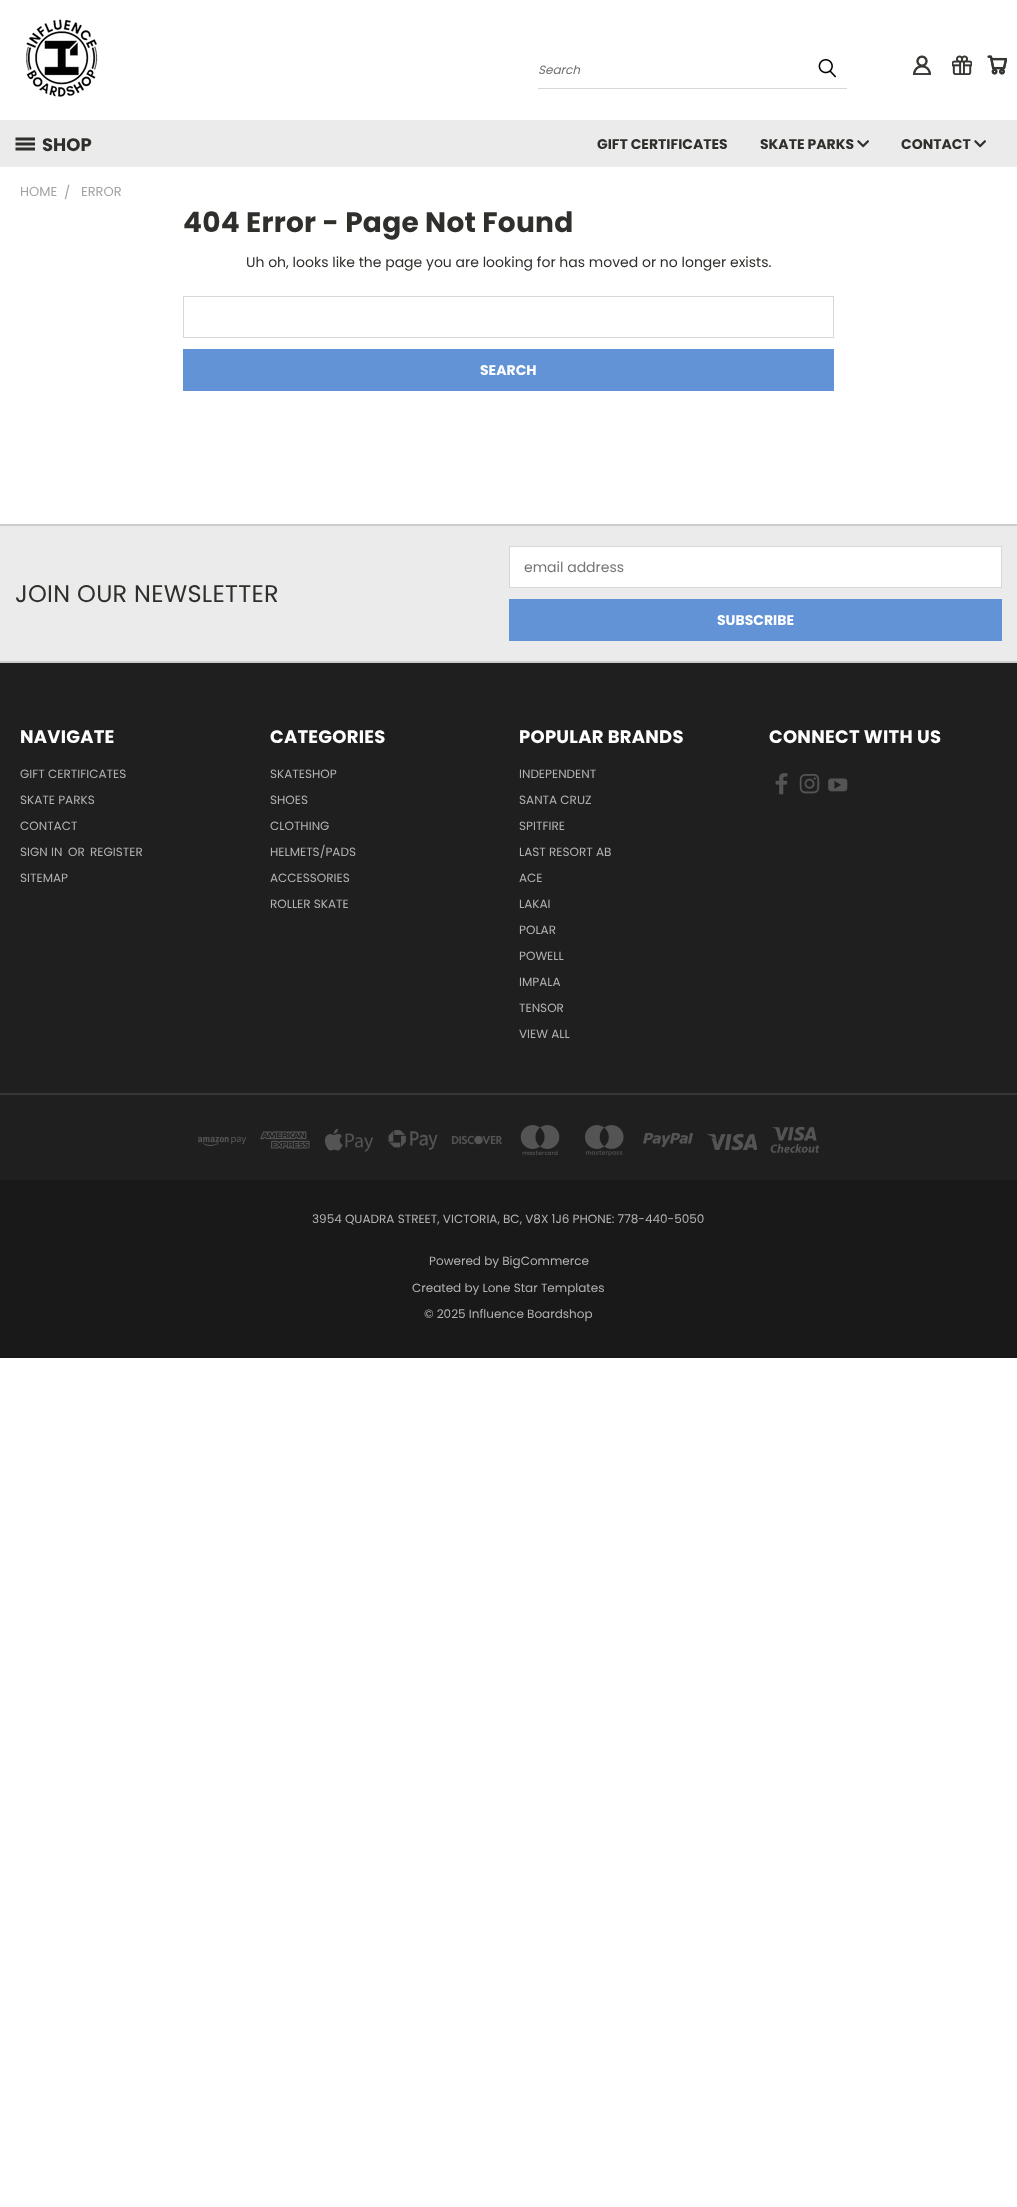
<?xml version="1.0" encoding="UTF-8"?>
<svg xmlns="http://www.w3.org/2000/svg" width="1017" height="2207">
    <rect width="100%" height="100%" fill="#FFFFFF"/>
    <image x="25" y="19" width="73" height="78" href="img_01.png"/>
    <rect x="538" y="88" width="309" height="1" fill="#D7D7D7"/>
    <text x="538" y="74" font-family="Poppins" font-size="12" font-style="italic" fill="#70706E">Search</text>
    <image x="818" y="59" width="18" height="19" href="img_02.png"/>
    <image x="913" y="55" width="18" height="20" href="img_03.png"/>
    <image x="952" y="55" width="20" height="20" href="img_04.png"/>
    <image x="987" y="55" width="20" height="20" href="img_05.png"/>
    <rect x="0" y="120" width="1017" height="47" fill="#EBEBEB"/>
    <image x="15" y="137" width="20" height="14" href="img_06.png"/>
    <text x="42" y="151" font-family="Poppins" font-size="18" font-weight="700" fill="#2F2F2B">SHOP</text>
    <text x="597" y="149" font-family="Poppins" font-size="14" font-weight="700" fill="#2F2F2B">GIFT CERTIFICATES</text>
    <text x="760" y="149" font-family="Poppins" font-size="14" font-weight="700" fill="#2F2F2B">SKATE PARKS</text>
    <image x="857" y="140" width="12" height="8" href="img_07.png"/>
    <text x="901" y="149" font-family="Poppins" font-size="14" font-weight="700" fill="#2F2F2B">CONTACT</text>
    <image x="974" y="140" width="12" height="8" href="img_07.png"/>
    <text x="20" y="196" font-family="Poppins" font-size="13" fill="#A2A2A2">HOME</text>
    <text x="64" y="197" font-family="Poppins" font-size="13" fill="#A2A2A2">/</text>
    <text x="81" y="196" font-family="Poppins" font-size="13" fill="#A2A2A2">ERROR</text>
    <text x="183" y="232" font-family="Poppins" font-size="28" font-weight="700" letter-spacing="0.25" fill="#2F2F2B">404 Error - Page Not Found</text>
    <text x="246" y="267" font-family="Poppins" font-size="14" fill="#2F2F2B">Uh oh, looks like the page you are looking for has moved or no longer exists.</text>
    <rect x="183.5" y="296.5" width="650" height="41" fill="none" stroke="#D7D7D7"/>
    <rect x="183" y="349" width="651" height="42" fill="#6293D6"/>
    <text x="480" y="375" font-family="Poppins" font-size="14" font-weight="700" fill="#FFFFFF">SEARCH</text>
    <rect x="0" y="526" width="1017" height="135" fill="#EBEBEB"/>
    <rect x="0" y="524" width="1017" height="2" fill="#CDCCCC"/>
    <text x="15" y="602" font-family="Poppins" font-size="24" letter-spacing="0.25" fill="#2F2F2B">JOIN OUR NEWSLETTER</text>
    <rect x="509.5" y="546.5" width="492" height="41" fill="#FFFFFF" stroke="#D7D7D7"/>
    <text x="524" y="572" font-family="Poppins" font-size="14" fill="#757575">email address</text>
    <rect x="509" y="599" width="493" height="42" fill="#6293D6"/>
    <text x="717" y="625" font-family="Poppins" font-size="14" font-weight="700" fill="#FFFFFF">SUBSCRIBE</text>
    <rect x="0" y="663" width="1017" height="517" fill="#1F1F1F"/>
    <rect x="0" y="661" width="1017" height="2" fill="#CDCCCC"/>
    <text x="20" y="743" font-family="Poppins" font-size="18" font-weight="700" letter-spacing="0.25" fill="#FFFFFF">NAVIGATE</text>
    <text x="20" y="778" font-family="Poppins" font-size="12" fill="#B2B2B2">GIFT CERTIFICATES</text>
    <text x="20" y="804" font-family="Poppins" font-size="12" fill="#B2B2B2">SKATE PARKS</text>
    <text x="20" y="830" font-family="Poppins" font-size="12" fill="#B2B2B2">CONTACT</text>
    <text x="20" y="856" font-family="Poppins" font-size="12" fill="#B2B2B2">SIGN IN</text>
    <text x="68" y="856" font-family="Poppins" font-size="12" fill="#B2B2B2">OR</text>
    <text x="90" y="856" font-family="Poppins" font-size="12" fill="#B2B2B2">REGISTER</text>
    <text x="20" y="882" font-family="Poppins" font-size="12" fill="#B2B2B2">SITEMAP</text>
    <text x="270" y="743" font-family="Poppins" font-size="18" font-weight="700" letter-spacing="0.25" fill="#FFFFFF">CATEGORIES</text>
    <text x="270" y="778" font-family="Poppins" font-size="12" fill="#B2B2B2">SKATESHOP</text>
    <text x="270" y="804" font-family="Poppins" font-size="12" fill="#B2B2B2">SHOES</text>
    <text x="270" y="830" font-family="Poppins" font-size="12" fill="#B2B2B2">CLOTHING</text>
    <text x="270" y="856" font-family="Poppins" font-size="12" fill="#B2B2B2">HELMETS/PADS</text>
    <text x="270" y="882" font-family="Poppins" font-size="12" fill="#B2B2B2">ACCESSORIES</text>
    <text x="270" y="908" font-family="Poppins" font-size="12" fill="#B2B2B2">ROLLER SKATE</text>
    <text x="519" y="743" font-family="Poppins" font-size="18" font-weight="700" letter-spacing="0.25" fill="#FFFFFF">POPULAR BRANDS</text>
    <text x="519" y="778" font-family="Poppins" font-size="12" fill="#B2B2B2">INDEPENDENT</text>
    <text x="519" y="804" font-family="Poppins" font-size="12" fill="#B2B2B2">SANTA CRUZ</text>
    <text x="519" y="830" font-family="Poppins" font-size="12" fill="#B2B2B2">SPITFIRE</text>
    <text x="519" y="856" font-family="Poppins" font-size="12" fill="#B2B2B2">LAST RESORT AB</text>
    <text x="519" y="882" font-family="Poppins" font-size="12" fill="#B2B2B2">ACE</text>
    <text x="519" y="908" font-family="Poppins" font-size="12" fill="#B2B2B2">LAKAI</text>
    <text x="519" y="934" font-family="Poppins" font-size="12" fill="#B2B2B2">POLAR</text>
    <text x="519" y="960" font-family="Poppins" font-size="12" fill="#B2B2B2">POWELL</text>
    <text x="519" y="986" font-family="Poppins" font-size="12" fill="#B2B2B2">IMPALA</text>
    <text x="519" y="1012" font-family="Poppins" font-size="12" fill="#B2B2B2">TENSOR</text>
    <text x="519" y="1038" font-family="Poppins" font-size="12" fill="#B2B2B2">VIEW ALL</text>
    <text x="769" y="743" font-family="Poppins" font-size="18" font-weight="700" letter-spacing="0.25" fill="#FFFFFF">CONNECT WITH US</text>
    <image x="775" y="773" width="13" height="22" href="img_08.png"/>
    <image x="799" y="773" width="21" height="21" href="img_09.png"/>
    <image x="828" y="778" width="20" height="14" href="img_10.png"/>
    <rect x="0" y="1093" width="1017" height="2" fill="#363636"/>
    <image x="198" y="1136" width="49" height="10" href="img_11.png"/>
    <image x="260" y="1131" width="50" height="18" href="img_12.png"/>
    <image x="325" y="1128" width="49" height="24" href="img_13.png"/>
    <image x="388" y="1130" width="50" height="20" href="img_14.png"/>
    <image x="452" y="1135" width="50" height="10" href="img_15.png"/>
    <image x="520" y="1125" width="40" height="30" href="img_16.png"/>
    <image x="585" y="1125" width="39" height="31" href="img_17.png"/>
    <image x="643" y="1133" width="50" height="14" href="img_18.png"/>
    <image x="707" y="1133" width="50" height="18" href="img_19.png"/>
    <image x="770" y="1126" width="50" height="27" href="img_20.png"/>
    <rect x="0" y="1180" width="1017" height="178" fill="#191919"/>
    <text x="312" y="1223" font-family="Poppins" font-size="12" fill="#B2B2B2">3954 QUADRA STREET, VICTORIA, BC, V8X 1J6 PHONE: 778-440-5050</text>
    <text x="429" y="1265" font-family="Poppins" font-size="12" fill="#B2B2B2">Powered by BigCommerce</text>
    <text x="412" y="1292" font-family="Poppins" font-size="12" fill="#B2B2B2">Created by Lone Star Templates</text>
    <text x="424" y="1318" font-family="Poppins" font-size="12" fill="#B2B2B2">© 2025 Influence Boardshop</text>
</svg>
